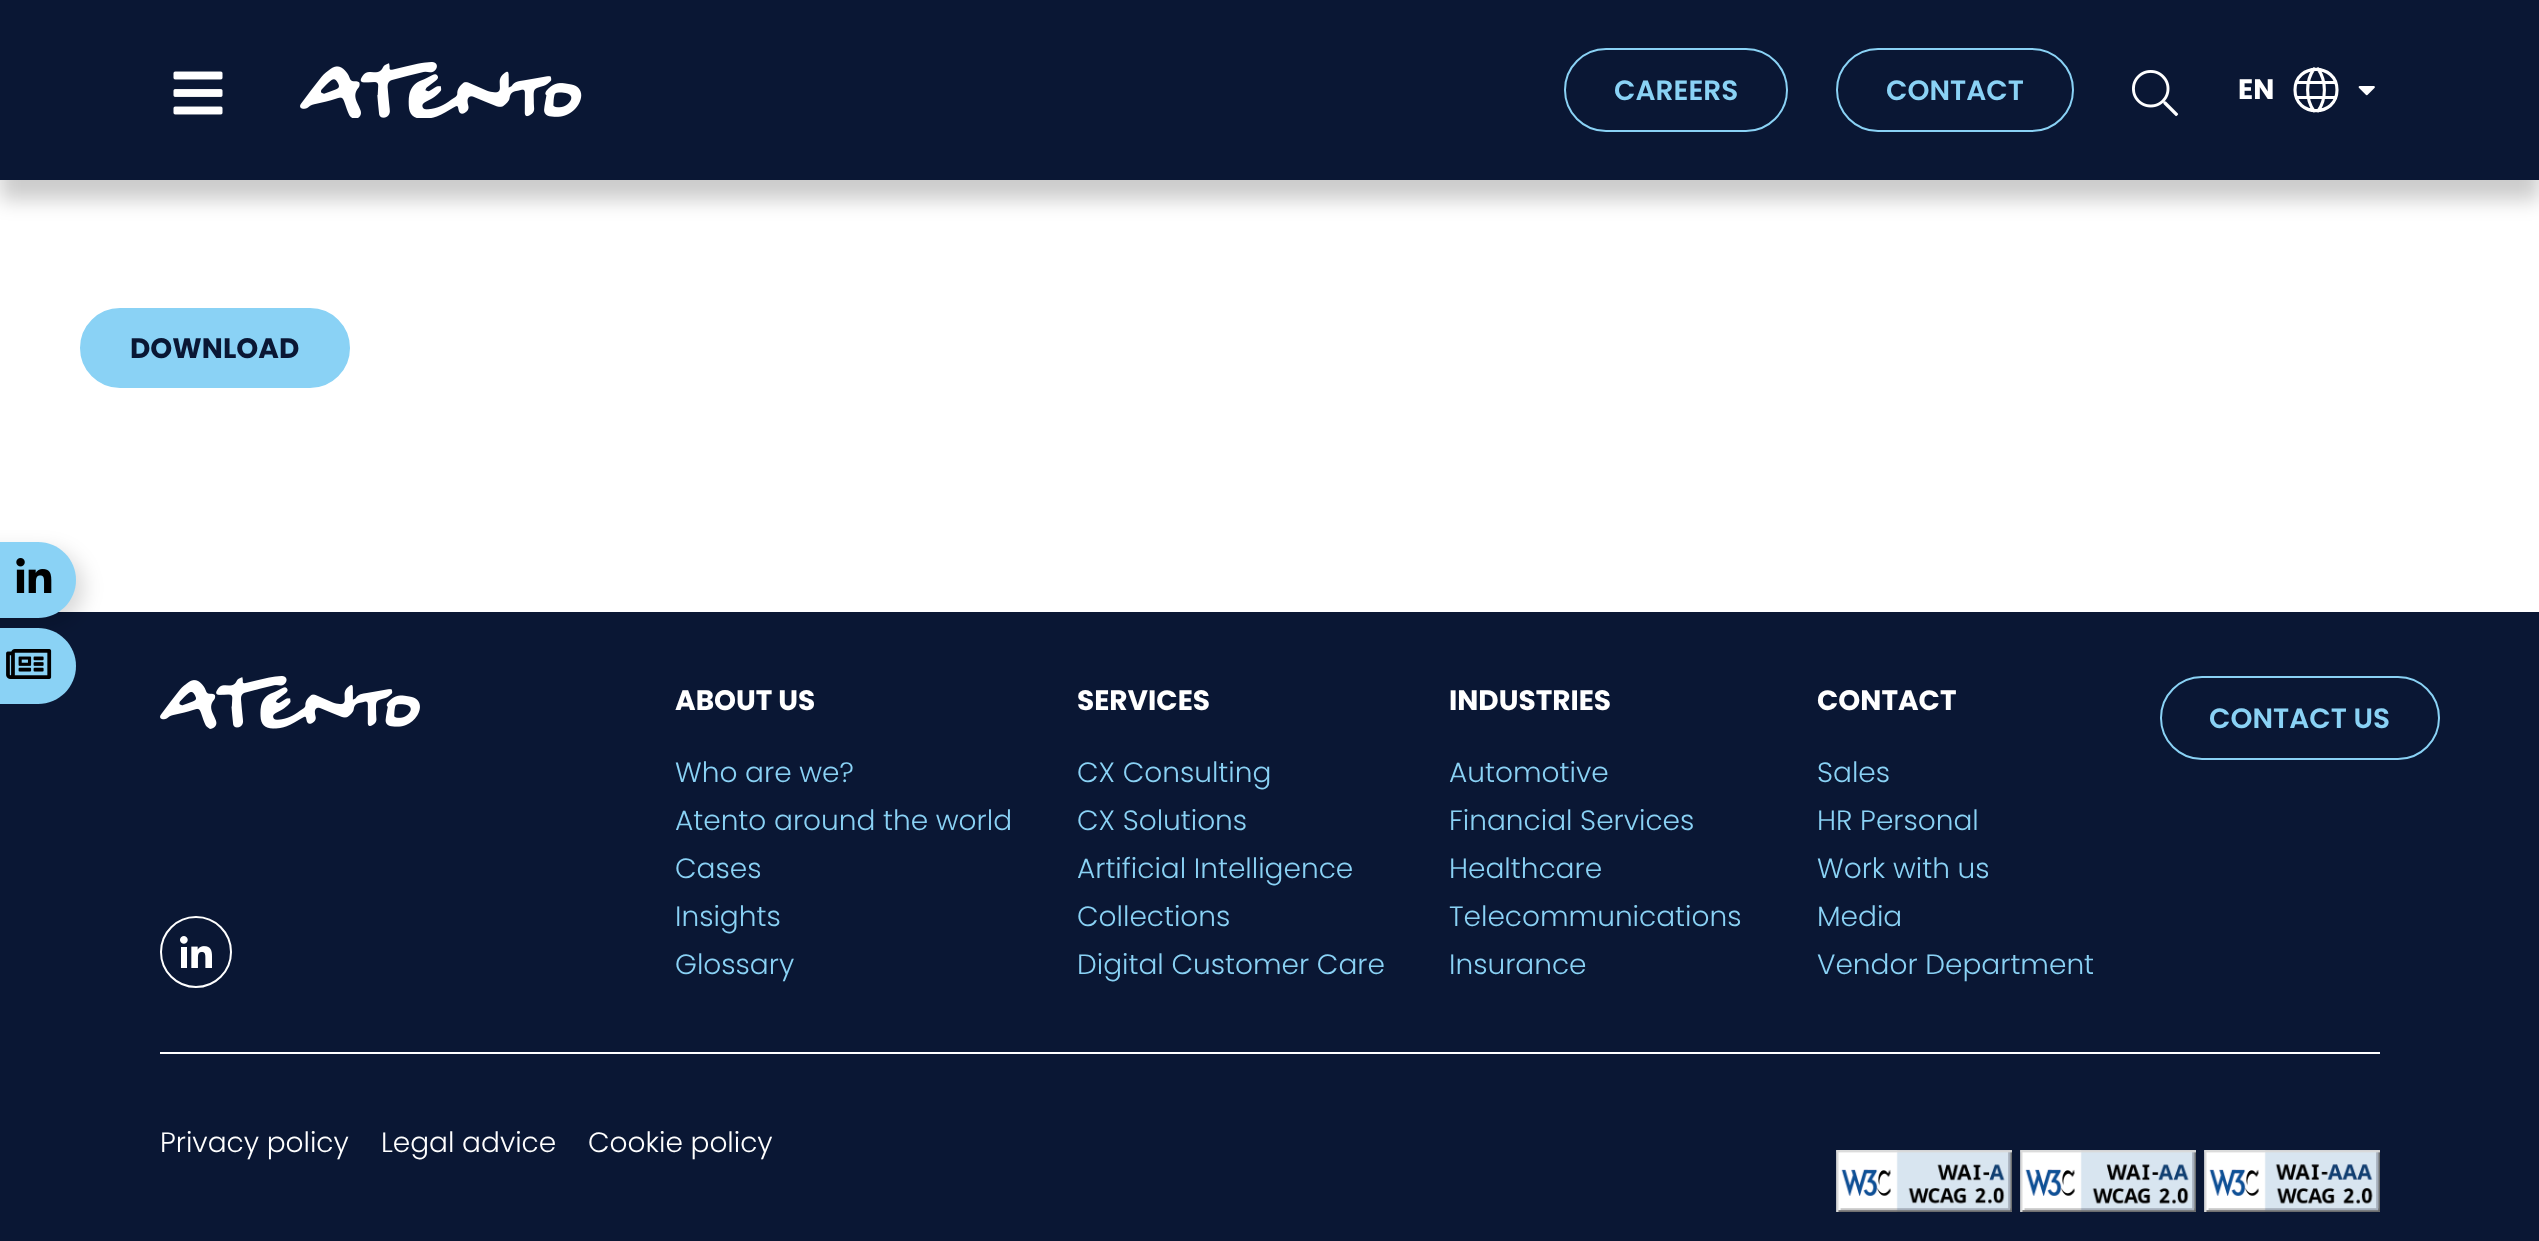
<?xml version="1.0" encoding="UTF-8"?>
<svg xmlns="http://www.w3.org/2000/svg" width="2539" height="1241">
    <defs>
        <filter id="blur1" x="-50%" y="-200%" width="200%" height="500%"><feGaussianBlur stdDeviation="10"/></filter>
    </defs>
    <rect width="100%" height="100%" fill="#FFFFFF"/>
    <rect x="0" y="20" width="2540" height="180" fill="#000000" fill-opacity="0.2" filter="url(#blur1)"/>
    <rect x="0" y="0" width="2539" height="180" fill="#0A1734"/>
    <image x="173" y="71" width="50" height="44" href="img_01.png"/>
    <image x="300" y="62" width="282" height="56" href="img_02.png"/>
    <rect x="1565" y="49" width="222" height="82" rx="41" fill="none" stroke="#8AD2F5" stroke-width="2"/>
    <text x="1614" y="100" font-family="Poppins" font-size="28" font-weight="600" fill="#8AD2F5">CAREERS</text>
    <rect x="1837" y="49" width="236" height="82" rx="41" fill="none" stroke="#8AD2F5" stroke-width="2"/>
    <text x="1886" y="100" font-family="Poppins" font-size="28" font-weight="600" fill="#8AD2F5">CONTACT</text>
    <image x="2132" y="70" width="47" height="47" href="img_03.png"/>
    <text x="2238" y="99" font-family="Poppins" font-size="28" font-weight="700" fill="#FFFFFF">EN</text>
    <path d="M 2295 90 C 2295 117.5 2337 117.5 2337 90 C 2337 62.5 2295 62.5 2295 90 Z M 2318 69 C 2326.5 80.5 2326.5 99.5 2318 111 M 2314 111 C 2305.5 99.5 2305.5 80.5 2314 69 M 2296.5 97.5 H 2335.5 M 2296.5 82.5 H 2335.5" fill="none" stroke="#FFFFFF" stroke-width="3.1" stroke-linecap="round" stroke-linejoin="round"/>
    <image x="2358" y="86" width="17" height="10" href="img_04.png"/>
    <rect x="81" y="309" width="268" height="78" rx="39" fill="#8AD2F5" stroke="#8AD2F5" stroke-width="2"/>
    <text x="130" y="358" font-family="Poppins" font-size="28" font-weight="700" fill="#0A1734">DOWNLOAD</text>
    <rect x="0" y="612" width="2539" height="629" fill="#0A1734"/>
    <rect x="-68" y="550" width="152" height="76" rx="38" fill="#000000" fill-opacity="0.15" filter="url(#blur1)"/>
    <path d="M -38 542 H 38 C 59 542 76 559 76 580 C 76 601 59 618 38 618 H -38 Z" fill="#8AD2F5"/>
    <image x="16" y="558" width="36" height="35" href="img_05.png"/>
    <path d="M -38 628 H 38 C 59 628 76 645 76 666 C 76 687 59 704 38 704 H -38 Z" fill="#8AD2F5"/>
    <image x="6" y="649" width="46" height="30" href="img_06.png"/>
    <rect x="160" y="1052" width="2220" height="2" fill="#FFFFFF"/>
    <image x="160" y="676" width="260" height="53" href="img_07.png"/>
    <circle cx="196" cy="952" r="35" fill="none" stroke="#FFFFFF" stroke-width="2"/>
    <image x="180" y="936" width="32" height="32" href="img_08.png"/>
    <text x="675" y="710" font-family="Poppins" font-size="28" font-weight="700" fill="#FFFFFF">ABOUT US</text>
    <text font-family="Poppins" font-size="28" font-weight="300" fill="#8AD2F5">
        <tspan x="675" y="782">Who are we?</tspan>
        <tspan x="675" y="830">Atento around the world</tspan>
        <tspan x="675" y="878">Cases</tspan>
        <tspan x="675" y="926">Insights</tspan>
        <tspan x="675" y="974">Glossary</tspan>
    </text>
    <text x="1077" y="710" font-family="Poppins" font-size="28" font-weight="700" fill="#FFFFFF">SERVICES</text>
    <text font-family="Poppins" font-size="28" font-weight="300" fill="#8AD2F5">
        <tspan x="1077" y="782">CX Consulting</tspan>
        <tspan x="1077" y="830">CX Solutions</tspan>
        <tspan x="1077" y="878">Artificial Intelligence</tspan>
        <tspan x="1077" y="926">Collections</tspan>
        <tspan x="1077" y="974">Digital Customer Care</tspan>
    </text>
    <text x="1449" y="710" font-family="Poppins" font-size="28" font-weight="700" fill="#FFFFFF">INDUSTRIES</text>
    <text font-family="Poppins" font-size="28" font-weight="300" fill="#8AD2F5">
        <tspan x="1449" y="782">Automotive</tspan>
        <tspan x="1449" y="830">Financial Services</tspan>
        <tspan x="1449" y="878">Healthcare</tspan>
        <tspan x="1449" y="926">Telecommunications</tspan>
        <tspan x="1449" y="974">Insurance</tspan>
    </text>
    <text x="1817" y="710" font-family="Poppins" font-size="28" font-weight="700" fill="#FFFFFF">CONTACT</text>
    <text font-family="Poppins" font-size="28" font-weight="300" fill="#8AD2F5">
        <tspan x="1817" y="782">Sales</tspan>
        <tspan x="1817" y="830">HR Personal</tspan>
        <tspan x="1817" y="878">Work with us</tspan>
        <tspan x="1817" y="926">Media</tspan>
        <tspan x="1817" y="974">Vendor Department</tspan>
    </text>
    <rect x="2161" y="677" width="278" height="82" rx="41" fill="none" stroke="#8AD2F5" stroke-width="2"/>
    <text x="2209" y="728" font-family="Poppins" font-size="28" font-weight="600" fill="#8AD2F5">CONTACT US</text>
    <text x="160" y="1152" font-family="Poppins" font-size="28" font-weight="300" fill="#FFFFFF">Privacy policy</text>
    <text x="381" y="1152" font-family="Poppins" font-size="28" font-weight="300" fill="#FFFFFF">Legal advice</text>
    <text x="588" y="1152" font-family="Poppins" font-size="28" font-weight="300" fill="#FFFFFF">Cookie policy</text>
    <image x="1836" y="1150" width="176" height="62" href="img_09.png"/>
    <image x="2020" y="1150" width="176" height="62" href="img_10.png"/>
    <image x="2204" y="1150" width="176" height="62" href="img_11.png"/>
</svg>
